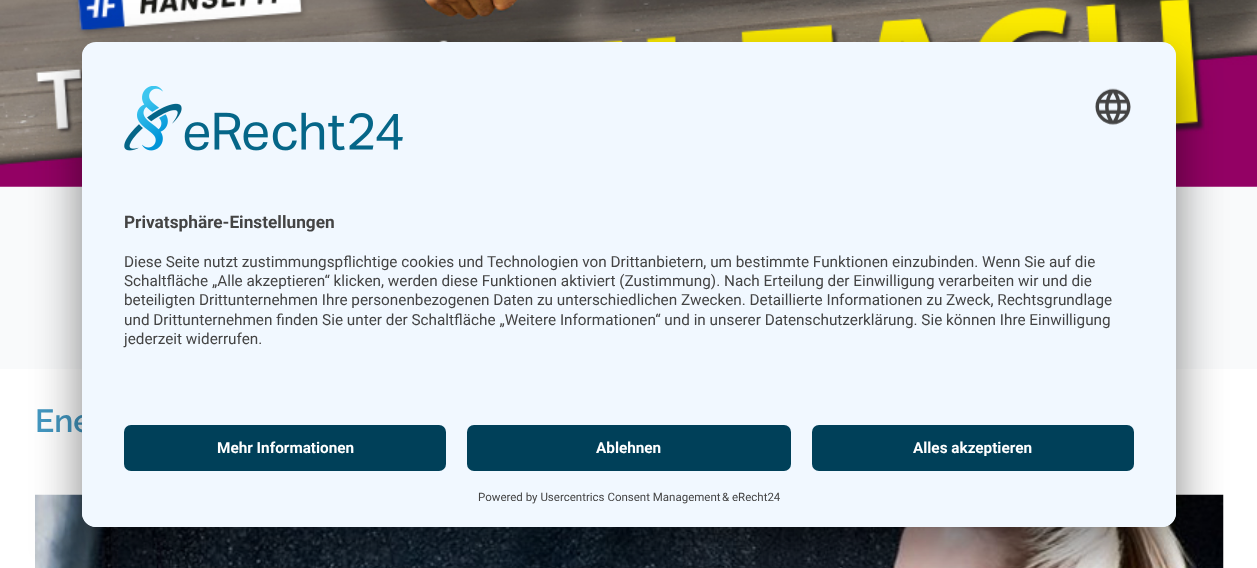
<?xml version="1.0" encoding="UTF-8"?>
<svg xmlns="http://www.w3.org/2000/svg" width="1257" height="568">
    <defs>
        <filter id="blur1" x="-50%" y="-200%" width="200%" height="500%"><feGaussianBlur stdDeviation="24.5"/></filter>
        <filter id="blur2" x="-50%" y="-200%" width="200%" height="500%"><feGaussianBlur stdDeviation="23"/></filter>
        <clipPath id="clip1"><rect x="82" y="42" width="1094" height="485" rx="14"/></clipPath>
        <clipPath id="clip2"><path d="M 96 42 H 1162 C 1169.5 42 1176 48.5 1176 56 V 411 H 82 V 56 C 82 48.5 88.5 42 96 42 Z"/></clipPath>
    </defs>
    <rect width="100%" height="100%" fill="#FFFFFF"/>
    <image x="0" y="0" width="1257" height="187" href="img_01.png"/>
    <rect x="0" y="187" width="1257" height="182" fill="#F9FAFB"/>
    <text x="35" y="432" font-family="Raleway" font-size="32" font-weight="600" fill="#4397C0">Ene</text>
    <image x="35" y="494" width="1189" height="74" href="img_02.png"/>
    <rect x="82" y="77" width="1094" height="485" rx="14" fill="#000000" fill-opacity="0.3" filter="url(#blur1)"/>
    <rect x="82" y="51" width="1094" height="485" rx="14" fill="#000000" fill-opacity="0.22" filter="url(#blur2)"/>
    <rect x="82" y="42" width="1094" height="485" rx="14" fill="#F1F8FF"/>
    <g clip-path="url(#clip1)">
        <g clip-path="url(#clip2)">
            <rect x="82" y="44" width="1094" height="367" fill="#F1F8FF"/>
        </g>
    </g>
    <image x="124" y="86" width="279" height="65" href="img_03.png"/>
    <image x="1095" y="88" width="36" height="37" href="img_04.png"/>
    <text x="124" y="228" font-family="Roboto" font-size="17.25" font-weight="700" fill="#444444">Privatsphäre-Einstellungen</text>
    <text font-family="Roboto" font-size="15.3" fill="#444444">
        <tspan x="124" y="267">Diese Seite nutzt zustimmungspflichtige cookies und Technologien von Drittanbietern, um bestimmte Funktionen einzubinden. Wenn Sie auf die</tspan>
        <tspan x="124" y="286">Schaltfläche „Alle akzeptieren“ klicken, werden diese Funktionen aktiviert (Zustimmung). Nach Erteilung der Einwilligung verarbeiten wir und die</tspan>
        <tspan x="124" y="305">beteiligten Drittunternehmen Ihre personenbezogenen Daten zu unterschiedlichen Zwecken. Detaillierte Informationen zu Zweck, Rechtsgrundlage</tspan>
        <tspan x="124" y="325">und Drittunternehmen finden Sie unter der Schaltfläche „Weitere Informationen“ und in unserer Datenschutzerklärung. Sie können Ihre Einwilligung</tspan>
        <tspan x="124" y="344">jederzeit widerrufen.</tspan>
    </text>
    <path d="M 82 411 H 1176 V 513 C 1176 520.5 1169.5 527 1162 527 H 96 C 88.5 527 82 520.5 82 513 Z" fill="#F1F8FF"/>
    <rect x="124" y="425" width="322" height="46" rx="7" fill="#004059"/>
    <text x="217" y="453" font-family="Roboto" font-size="15.3" font-weight="700" fill="#FFFFFF">Mehr Informationen</text>
    <rect x="467" y="425" width="324" height="46" rx="7" fill="#004059"/>
    <text x="596" y="453" font-family="Roboto" font-size="15.3" font-weight="700" fill="#FFFFFF">Ablehnen</text>
    <rect x="812" y="425" width="322" height="46" rx="7" fill="#004059"/>
    <text x="913" y="453" font-family="Roboto" font-size="15.3" font-weight="700" fill="#FFFFFF">Alles akzeptieren</text>
    <text x="478" y="501" font-family="Roboto" font-size="11.5" fill="#444444">Powered by Usercentrics Consent Management</text>
    <text x="722" y="501" font-family="Roboto" font-size="11.5" fill="#444444">&amp; eRecht24</text>
</svg>
